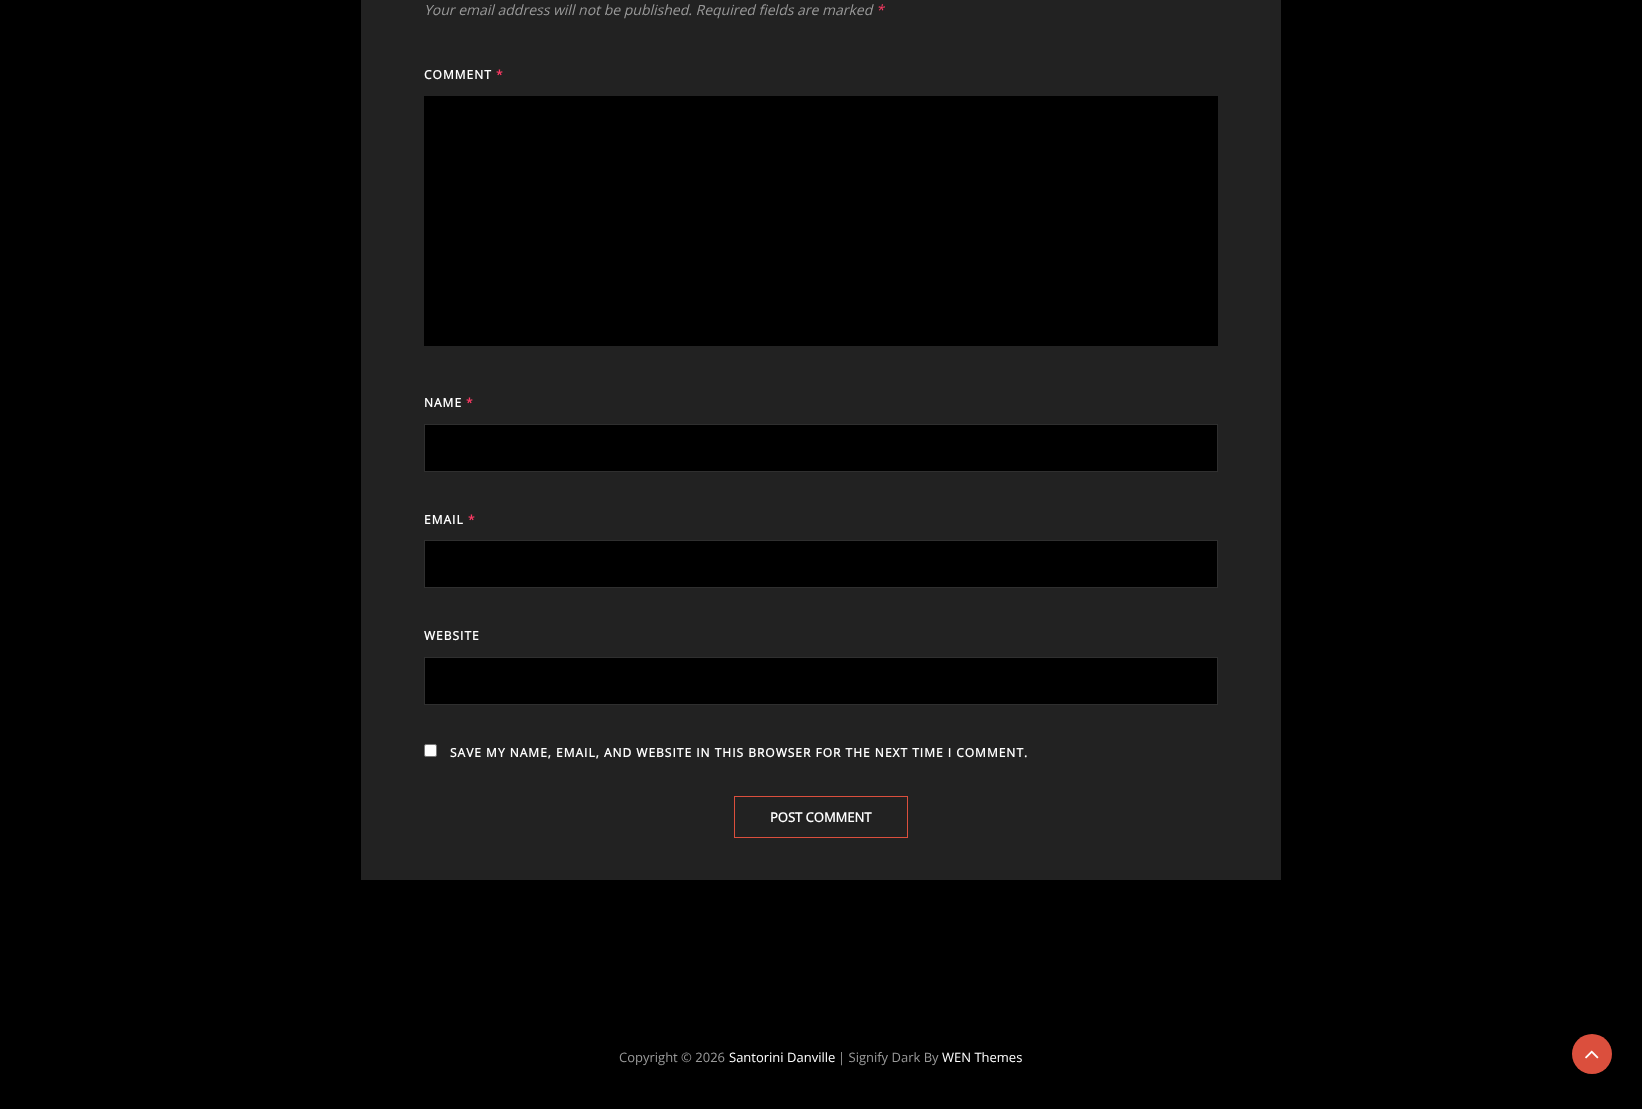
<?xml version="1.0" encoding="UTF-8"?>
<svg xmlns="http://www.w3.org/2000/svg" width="1642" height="1109">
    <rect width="100%" height="100%" fill="#000000"/>
    <rect x="361" y="0" width="920" height="880" fill="#222222"/>
    <text x="424" y="15" font-family="Open Sans" font-size="14" font-style="italic" fill="#999999">Your email address will not be published. Required fields are marked</text>
    <text x="876" y="15" font-family="Open Sans" font-size="14" font-style="italic" fill="#FB3A64">*</text>
    <text x="424" y="79" font-family="Open Sans" font-size="12" font-weight="700" letter-spacing="1" fill="#FFFFFF">COMMENT</text>
    <text x="496" y="79" font-family="Open Sans" font-size="12" font-weight="700" letter-spacing="1" fill="#FB3A64">*</text>
    <rect x="424" y="96" width="794" height="250" fill="#000000"/>
    <text x="424" y="407" font-family="Open Sans" font-size="12" font-weight="700" letter-spacing="1" fill="#FFFFFF">NAME</text>
    <text x="466" y="407" font-family="Open Sans" font-size="12" font-weight="700" letter-spacing="1" fill="#FB3A64">*</text>
    <rect x="424.5" y="424.5" width="793" height="47" fill="#000000" stroke="#2F2F2F"/>
    <text x="424" y="524" font-family="Open Sans" font-size="12" font-weight="700" letter-spacing="1" fill="#FFFFFF">EMAIL</text>
    <text x="468" y="524" font-family="Open Sans" font-size="12" font-weight="700" letter-spacing="1" fill="#FB3A64">*</text>
    <rect x="424.5" y="540.5" width="793" height="47" fill="#000000" stroke="#2F2F2F"/>
    <text x="424" y="640" font-family="Open Sans" font-size="12" font-weight="700" letter-spacing="1" fill="#FFFFFF">WEBSITE</text>
    <rect x="424.5" y="657.5" width="793" height="47" fill="#000000" stroke="#2F2F2F"/>
    <rect x="424.5" y="744.5" width="12" height="12" rx="1.5" fill="#FFFFFF" stroke="#767676"/>
    <text x="450" y="757" font-family="Open Sans" font-size="12" font-weight="700" letter-spacing="1" fill="#FFFFFF">SAVE MY NAME, EMAIL, AND WEBSITE IN THIS BROWSER FOR THE NEXT TIME I COMMENT.</text>
    <rect x="734.5" y="796.5" width="173" height="41" fill="none" stroke="#DB4F3D"/>
    <text x="770" y="822" font-family="Open Sans" font-size="13" font-weight="700" fill="#FFFFFF">POST COMMENT</text>
    <text x="619" y="1062" font-family="Open Sans" font-size="13" fill="#999999">Copyright © 2026</text>
    <text x="729" y="1062" font-family="Open Sans" font-size="13" fill="#FFFFFF">Santorini Danville</text>
    <text x="838" y="1062" font-family="Open Sans" font-size="13" fill="#999999">| Signify Dark By</text>
    <text x="942" y="1062" font-family="Open Sans" font-size="13" fill="#FFFFFF">WEN Themes</text>
    <circle cx="1592" cy="1054" r="20" fill="#DB4F3D"/>
    <image x="1585" y="1050" width="14" height="9" href="img_01.png"/>
</svg>
